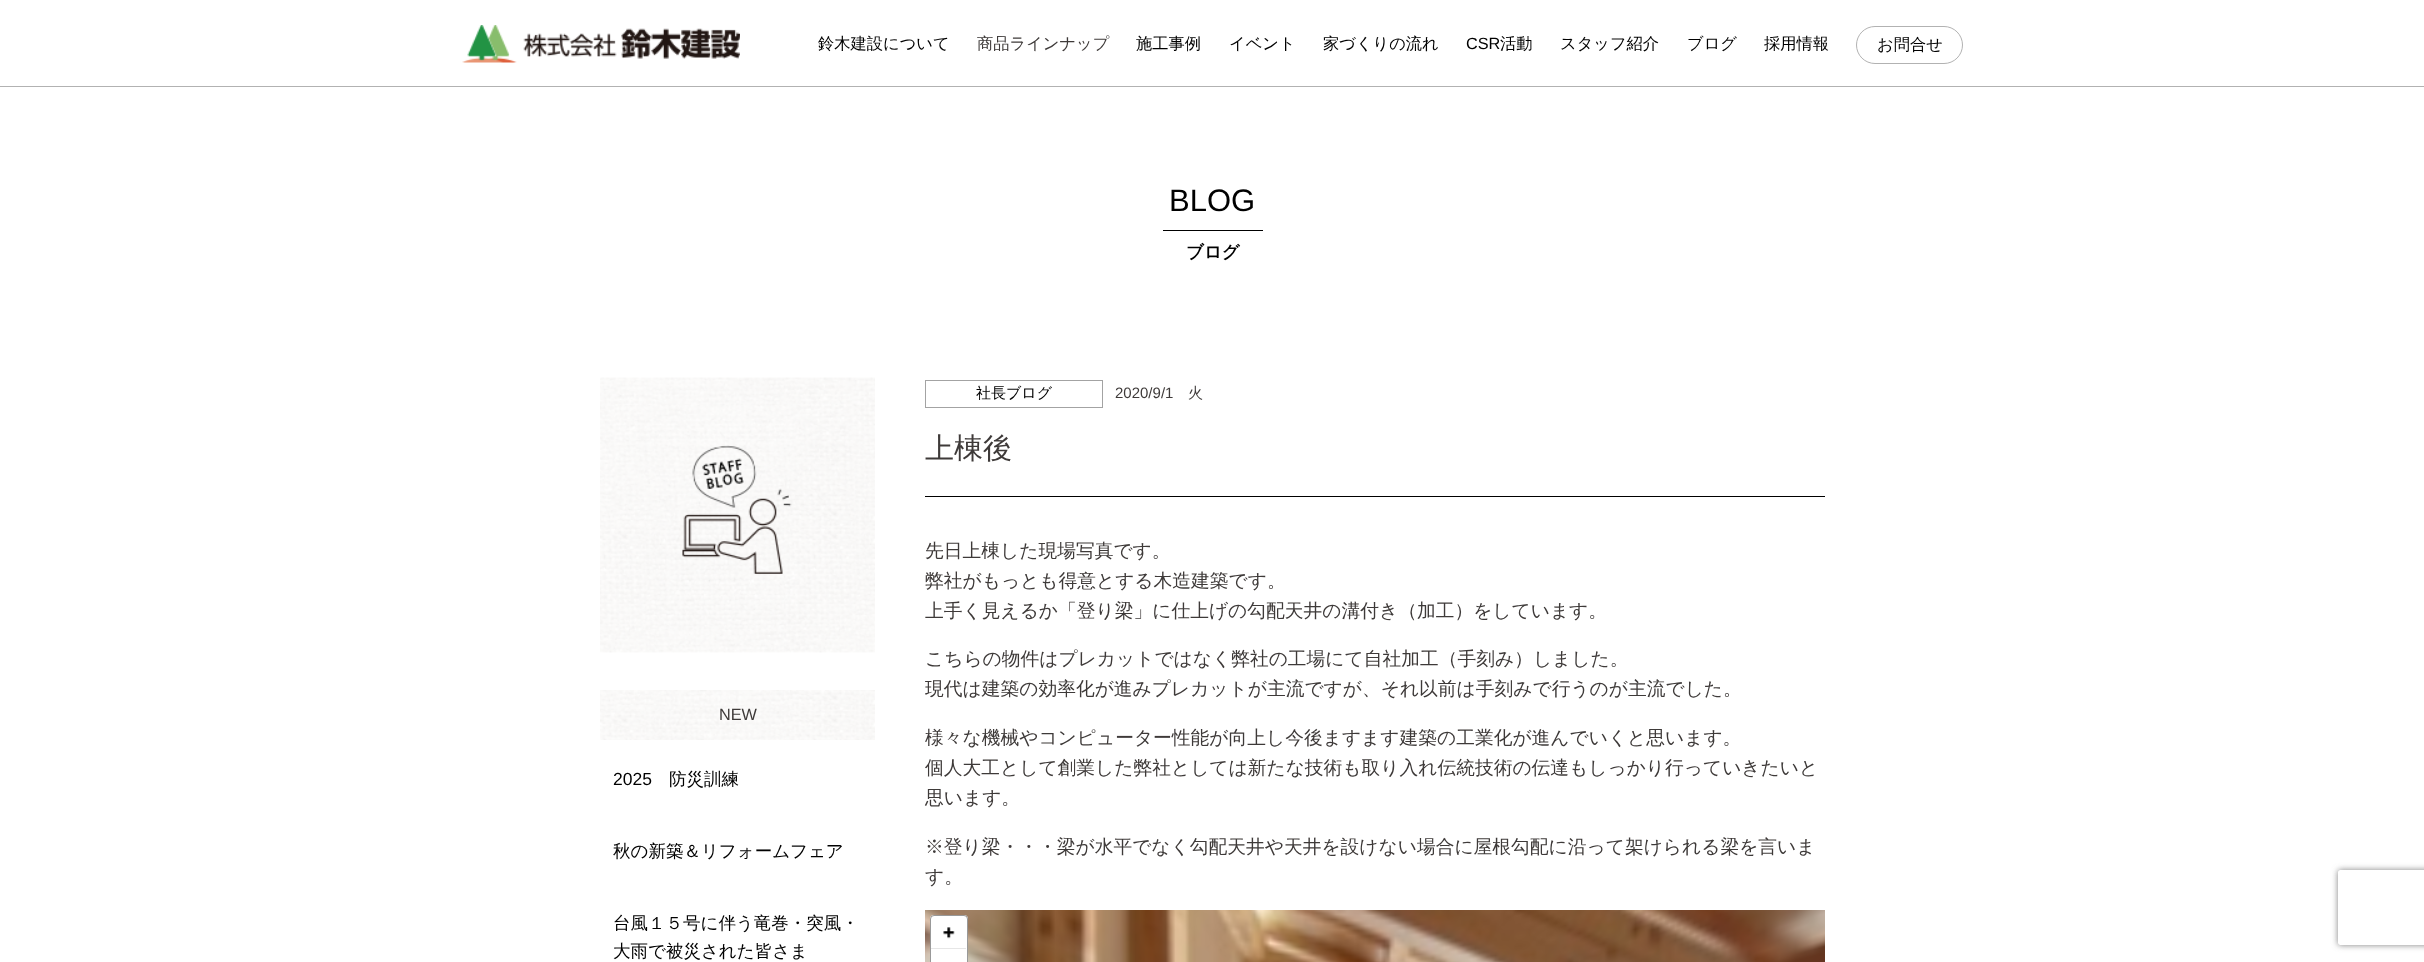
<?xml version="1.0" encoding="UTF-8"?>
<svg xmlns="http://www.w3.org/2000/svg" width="2424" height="962">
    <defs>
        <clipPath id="clip1"><path d="M 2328 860 H 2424 V 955 H 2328 Z M 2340.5 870 H 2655.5 C 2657 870 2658 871 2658 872.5 V 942.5 C 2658 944 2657 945 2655.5 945 H 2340.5 C 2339 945 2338 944 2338 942.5 V 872.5 C 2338 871 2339 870 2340.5 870 Z" clip-rule="evenodd"/></clipPath>
        <filter id="blur1" x="-50%" y="-200%" width="200%" height="500%"><feGaussianBlur stdDeviation="3"/></filter>
    </defs>
    <rect width="100%" height="100%" fill="#FFFFFF"/>
    <rect x="0" y="86" width="2424" height="1" fill="#B2B2B2"/>
    <image x="462" y="25" width="278" height="38" href="img_01.png"/>
    <text x="818" y="49" font-family="WenQuanYi Zen Hei" font-size="16.25" font-weight="500" fill="#000000">鈴木建設について</text>
    <text x="977" y="49" font-family="WenQuanYi Zen Hei" font-size="16.25" font-weight="500" fill="#3E3A39">商品ラインナップ</text>
    <text x="1136" y="49" font-family="WenQuanYi Zen Hei" font-size="16.25" font-weight="500" fill="#000000">施工事例</text>
    <text x="1229" y="49" font-family="WenQuanYi Zen Hei" font-size="16.25" font-weight="500" fill="#000000">イベント</text>
    <text x="1323" y="49" font-family="WenQuanYi Zen Hei" font-size="16.25" font-weight="500" fill="#000000">家づくりの流れ</text>
    <text x="1466" y="49" font-family="Liberation Sans" font-size="16.25" fill="#000000">CSR</text>
    <text x="1500" y="49" font-family="WenQuanYi Zen Hei" font-size="16.25" font-weight="500" fill="#000000">活動</text>
    <text x="1560" y="49" font-family="WenQuanYi Zen Hei" font-size="16.25" font-weight="500" fill="#000000">スタッフ紹介</text>
    <text x="1687" y="49" font-family="WenQuanYi Zen Hei" font-size="16.25" font-weight="500" fill="#000000">ブログ</text>
    <text x="1764" y="49" font-family="WenQuanYi Zen Hei" font-size="16.25" font-weight="500" fill="#000000">採用情報</text>
    <rect x="1856.5" y="26.5" width="106" height="37" rx="18.5" fill="none" stroke="#B2B2B2"/>
    <text x="1877" y="50" font-family="WenQuanYi Zen Hei" font-size="16.25" font-weight="500" fill="#000000">お問合せ</text>
    <text x="1169" y="211" font-family="Liberation Sans" font-size="31" fill="#000000">BLOG</text>
    <rect x="1163" y="230" width="100" height="1" fill="#000000"/>
    <text x="1186" y="258" font-family="WenQuanYi Zen Hei" font-size="17.5" font-weight="700" fill="#000000">ブログ</text>
    <image x="600" y="377" width="275" height="276" href="img_02.png"/>
    <image x="600" y="690" width="275" height="50" href="img_03.png"/>
    <text x="719" y="720" font-family="Liberation Sans" font-size="16.25" fill="#3E3A39">NEW</text>
    <text x="613" y="785" font-family="Liberation Sans" font-size="17.5" fill="#000000">2025</text>
    <text x="669" y="785" font-family="WenQuanYi Zen Hei" font-size="17.5" font-weight="500" fill="#000000">防災訓練</text>
    <text x="613" y="857" font-family="WenQuanYi Zen Hei" font-size="17.5" font-weight="500" fill="#000000">秋の新築＆リフォームフェア</text>
    <text font-family="WenQuanYi Zen Hei" font-size="17.5" font-weight="500" fill="#000000">
        <tspan x="613" y="929">台風１５号に伴う竜巻・突風・</tspan>
        <tspan x="613" y="957">大雨で被災された皆さま</tspan>
    </text>
    <rect x="925.5" y="380.5" width="177" height="27" fill="none" stroke="#A3A3A3"/>
    <text x="976" y="398" font-family="WenQuanYi Zen Hei" font-size="15" font-weight="500" fill="#000000">社長ブログ</text>
    <text x="1115" y="398" font-family="Liberation Sans" font-size="15" fill="#3E3A39">2020/9/1</text>
    <text x="1188" y="398" font-family="WenQuanYi Zen Hei" font-size="15" font-weight="500" fill="#3E3A39">火</text>
    <rect x="925" y="496" width="900" height="1" fill="#000000"/>
    <text x="925" y="458" font-family="WenQuanYi Zen Hei" font-size="29" font-weight="500" fill="#3E3A39">上棟後</text>
    <text font-family="WenQuanYi Zen Hei" font-size="18.75" font-weight="500" fill="#3E3A39">
        <tspan x="925" y="557">先日上棟した現場写真です。</tspan>
        <tspan x="925" y="587">弊社がもっとも得意とする木造建築です。</tspan>
        <tspan x="925" y="617">上手く見えるか「登り梁」に仕上げの勾配天井の溝付き（加工）をしています。</tspan>
    </text>
    <text font-family="WenQuanYi Zen Hei" font-size="18.75" font-weight="500" fill="#3E3A39">
        <tspan x="925" y="665">こちらの物件はプレカットではなく弊社の工場にて自社加工（手刻み）しました。</tspan>
        <tspan x="925" y="695">現代は建築の効率化が進みプレカットが主流ですが、それ以前は手刻みで行うのが主流でした。</tspan>
    </text>
    <text font-family="WenQuanYi Zen Hei" font-size="18.75" font-weight="500" fill="#3E3A39">
        <tspan x="925" y="744">様々な機械やコンピューター性能が向上し今後ますます建築の工業化が進んでいくと思います。</tspan>
        <tspan x="925" y="774">個人大工として創業した弊社としては新たな技術も取り入れ伝統技術の伝達もしっかり行っていきたいと</tspan>
        <tspan x="925" y="804">思います。</tspan>
    </text>
    <text font-family="WenQuanYi Zen Hei" font-size="18.75" font-weight="500" fill="#3E3A39">
        <tspan x="925" y="853">※登り梁・・・梁が水平でなく勾配天井や天井を設けない場合に屋根勾配に沿って架けられる梁を言いま</tspan>
        <tspan x="925" y="883">す。</tspan>
    </text>
    <image x="925" y="910" width="900" height="52" href="img_04.png"/>
    <rect x="930" y="915" width="38" height="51" rx="4" fill="#FFFFFF"/>
    <rect x="930.5" y="915.5" width="37" height="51" rx="3.5" fill="none" stroke="#000000" stroke-opacity="0.4"/>
    <image x="943" y="927" width="12" height="12" href="img_05.png"/>
    <rect x="931" y="948" width="35" height="1" fill="#E6E6E6"/>
    <g clip-path="url(#clip1)">
        <rect x="2338" y="870" width="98" height="75" rx="2.5" fill="#808080" filter="url(#blur1)"/>
    </g>
</svg>
